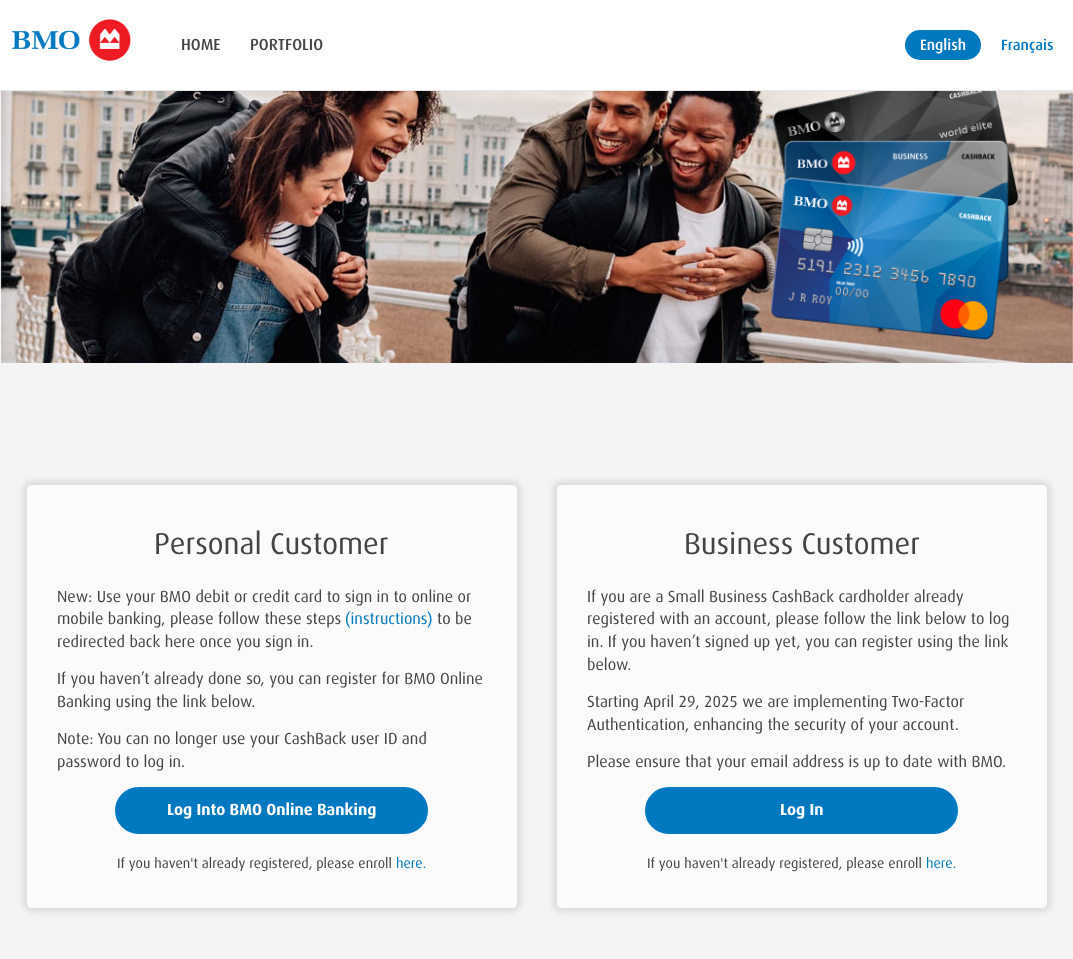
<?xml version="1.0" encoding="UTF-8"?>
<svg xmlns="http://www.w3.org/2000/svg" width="1073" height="959">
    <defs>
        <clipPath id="clip1"><path d="M 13 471 H 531 V 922 H 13 Z M 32 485 H 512 C 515 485 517 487 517 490 V 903 C 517 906 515 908 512 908 H 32 C 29 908 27 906 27 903 V 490 C 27 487 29 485 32 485 Z" clip-rule="evenodd"/></clipPath>
        <filter id="blur1" x="-50%" y="-200%" width="200%" height="500%"><feGaussianBlur stdDeviation="3"/></filter>
        <clipPath id="clip2"><path d="M 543 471 H 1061 V 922 H 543 Z M 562 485 H 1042 C 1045 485 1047 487 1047 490 V 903 C 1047 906 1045 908 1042 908 H 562 C 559 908 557 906 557 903 V 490 C 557 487 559 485 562 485 Z" clip-rule="evenodd"/></clipPath>
    </defs>
    <rect width="100%" height="100%" fill="#F4F4F4"/>
    <rect x="0" y="90" width="1073" height="1" fill="#E7E7E7"/>
    <rect x="0" y="0" width="1073" height="90" fill="#FFFFFF"/>
    <image x="12" y="19" width="119" height="42" href="img_01.png"/>
    <text x="181" y="50" font-family="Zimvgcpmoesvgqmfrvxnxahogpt" font-size="16" font-weight="500" fill="#444444">HOME</text>
    <text x="250" y="50" font-family="Zimvgcpmoesvgqmfrvxnxahogpt" font-size="16" font-weight="500" fill="#444444">PORTFOLIO</text>
    <rect x="905" y="30" width="76" height="30" rx="15" fill="#0079C1"/>
    <text x="920" y="50" font-family="Zimvgcpmoesvgqmfrvxnxahogpt" font-size="15" font-weight="500" fill="#FFFFFF">English</text>
    <text x="1001" y="50" font-family="Zimvgcpmoesvgqmfrvxnxahogpt" font-size="15" font-weight="500" fill="#0079C1">Français</text>
    <image x="0" y="91" width="1073" height="272" href="img_02.png"/>
    <image x="770" y="91" width="249" height="249" href="img_03.png"/>
    <g clip-path="url(#clip1)">
        <rect x="23" y="481" width="498" height="431" rx="9" fill="#000000" fill-opacity="0.1" filter="url(#blur1)"/>
    </g>
    <rect x="27" y="485" width="490" height="423" rx="5" fill="#FFFFFF" fill-opacity="0.65"/>
    <text x="154" y="554" font-family="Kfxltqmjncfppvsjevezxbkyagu" font-size="30" fill="#444444">Personal Customer</text>
    <text font-family="Kfxltqmjncfppvsjevezxbkyagu" font-size="16" fill="#444444">
        <tspan x="57" y="602">New: Use your BMO debit or credit card to sign in to online or</tspan>
        <tspan x="57" y="624">mobile banking, please follow these steps</tspan>
    </text>
    <text x="345" y="624" font-family="Kfxltqmjncfppvsjevezxbkyagu" font-size="16" fill="#0079C1">(instructions)</text>
    <text x="437" y="624" font-family="Kfxltqmjncfppvsjevezxbkyagu" font-size="16" fill="#444444">to be</text>
    <text x="57" y="647" font-family="Kfxltqmjncfppvsjevezxbkyagu" font-size="16" fill="#444444">redirected back here once you sign in.</text>
    <text font-family="Kfxltqmjncfppvsjevezxbkyagu" font-size="16" fill="#444444">
        <tspan x="57" y="684">If you haven’t already done so, you can register for BMO Online</tspan>
        <tspan x="57" y="707">Banking using the link below.</tspan>
    </text>
    <text font-family="Kfxltqmjncfppvsjevezxbkyagu" font-size="16" fill="#444444">
        <tspan x="57" y="744">Note: You can no longer use your CashBack user ID and</tspan>
        <tspan x="57" y="767">password to log in.</tspan>
    </text>
    <rect x="116" y="788" width="311" height="45" rx="22.5" fill="#0079C1" stroke="#0079C1" stroke-width="2"/>
    <text x="167" y="815" font-family="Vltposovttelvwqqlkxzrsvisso" font-size="16" font-weight="700" fill="#FFFFFF">Log Into BMO Online Banking</text>
    <text x="117" y="868" font-family="Kfxltqmjncfppvsjevezxbkyagu" font-size="14" fill="#444444">If you haven't already registered, please enroll</text>
    <text x="396" y="868" font-family="Kfxltqmjncfppvsjevezxbkyagu" font-size="14" fill="#0079C1">here.</text>
    <g clip-path="url(#clip2)">
        <rect x="553" y="481" width="498" height="431" rx="9" fill="#000000" fill-opacity="0.1" filter="url(#blur1)"/>
    </g>
    <rect x="557" y="485" width="490" height="423" rx="5" fill="#FFFFFF" fill-opacity="0.65"/>
    <text x="684" y="554" font-family="Kfxltqmjncfppvsjevezxbkyagu" font-size="30" fill="#444444">Business Customer</text>
    <text font-family="Kfxltqmjncfppvsjevezxbkyagu" font-size="16" fill="#444444">
        <tspan x="587" y="602">If you are a Small Business CashBack cardholder already</tspan>
        <tspan x="587" y="624">registered with an account, please follow the link below to log</tspan>
        <tspan x="587" y="647">in. If you haven’t signed up yet, you can register using the link</tspan>
        <tspan x="587" y="670">below.</tspan>
    </text>
    <text font-family="Kfxltqmjncfppvsjevezxbkyagu" font-size="16" fill="#444444">
        <tspan x="587" y="707">Starting April 29, 2025 we are implementing Two-Factor</tspan>
        <tspan x="587" y="730">Authentication, enhancing the security of your account.</tspan>
    </text>
    <text x="587" y="767" font-family="Kfxltqmjncfppvsjevezxbkyagu" font-size="16" fill="#444444">Please ensure that your email address is up to date with BMO.</text>
    <rect x="646" y="788" width="311" height="45" rx="22.5" fill="#0079C1" stroke="#0079C1" stroke-width="2"/>
    <text x="780" y="815" font-family="Vltposovttelvwqqlkxzrsvisso" font-size="16" font-weight="700" fill="#FFFFFF">Log In</text>
    <text x="647" y="868" font-family="Kfxltqmjncfppvsjevezxbkyagu" font-size="14" fill="#444444">If you haven't already registered, please enroll</text>
    <text x="926" y="868" font-family="Kfxltqmjncfppvsjevezxbkyagu" font-size="14" fill="#0079C1">here.</text>
</svg>
